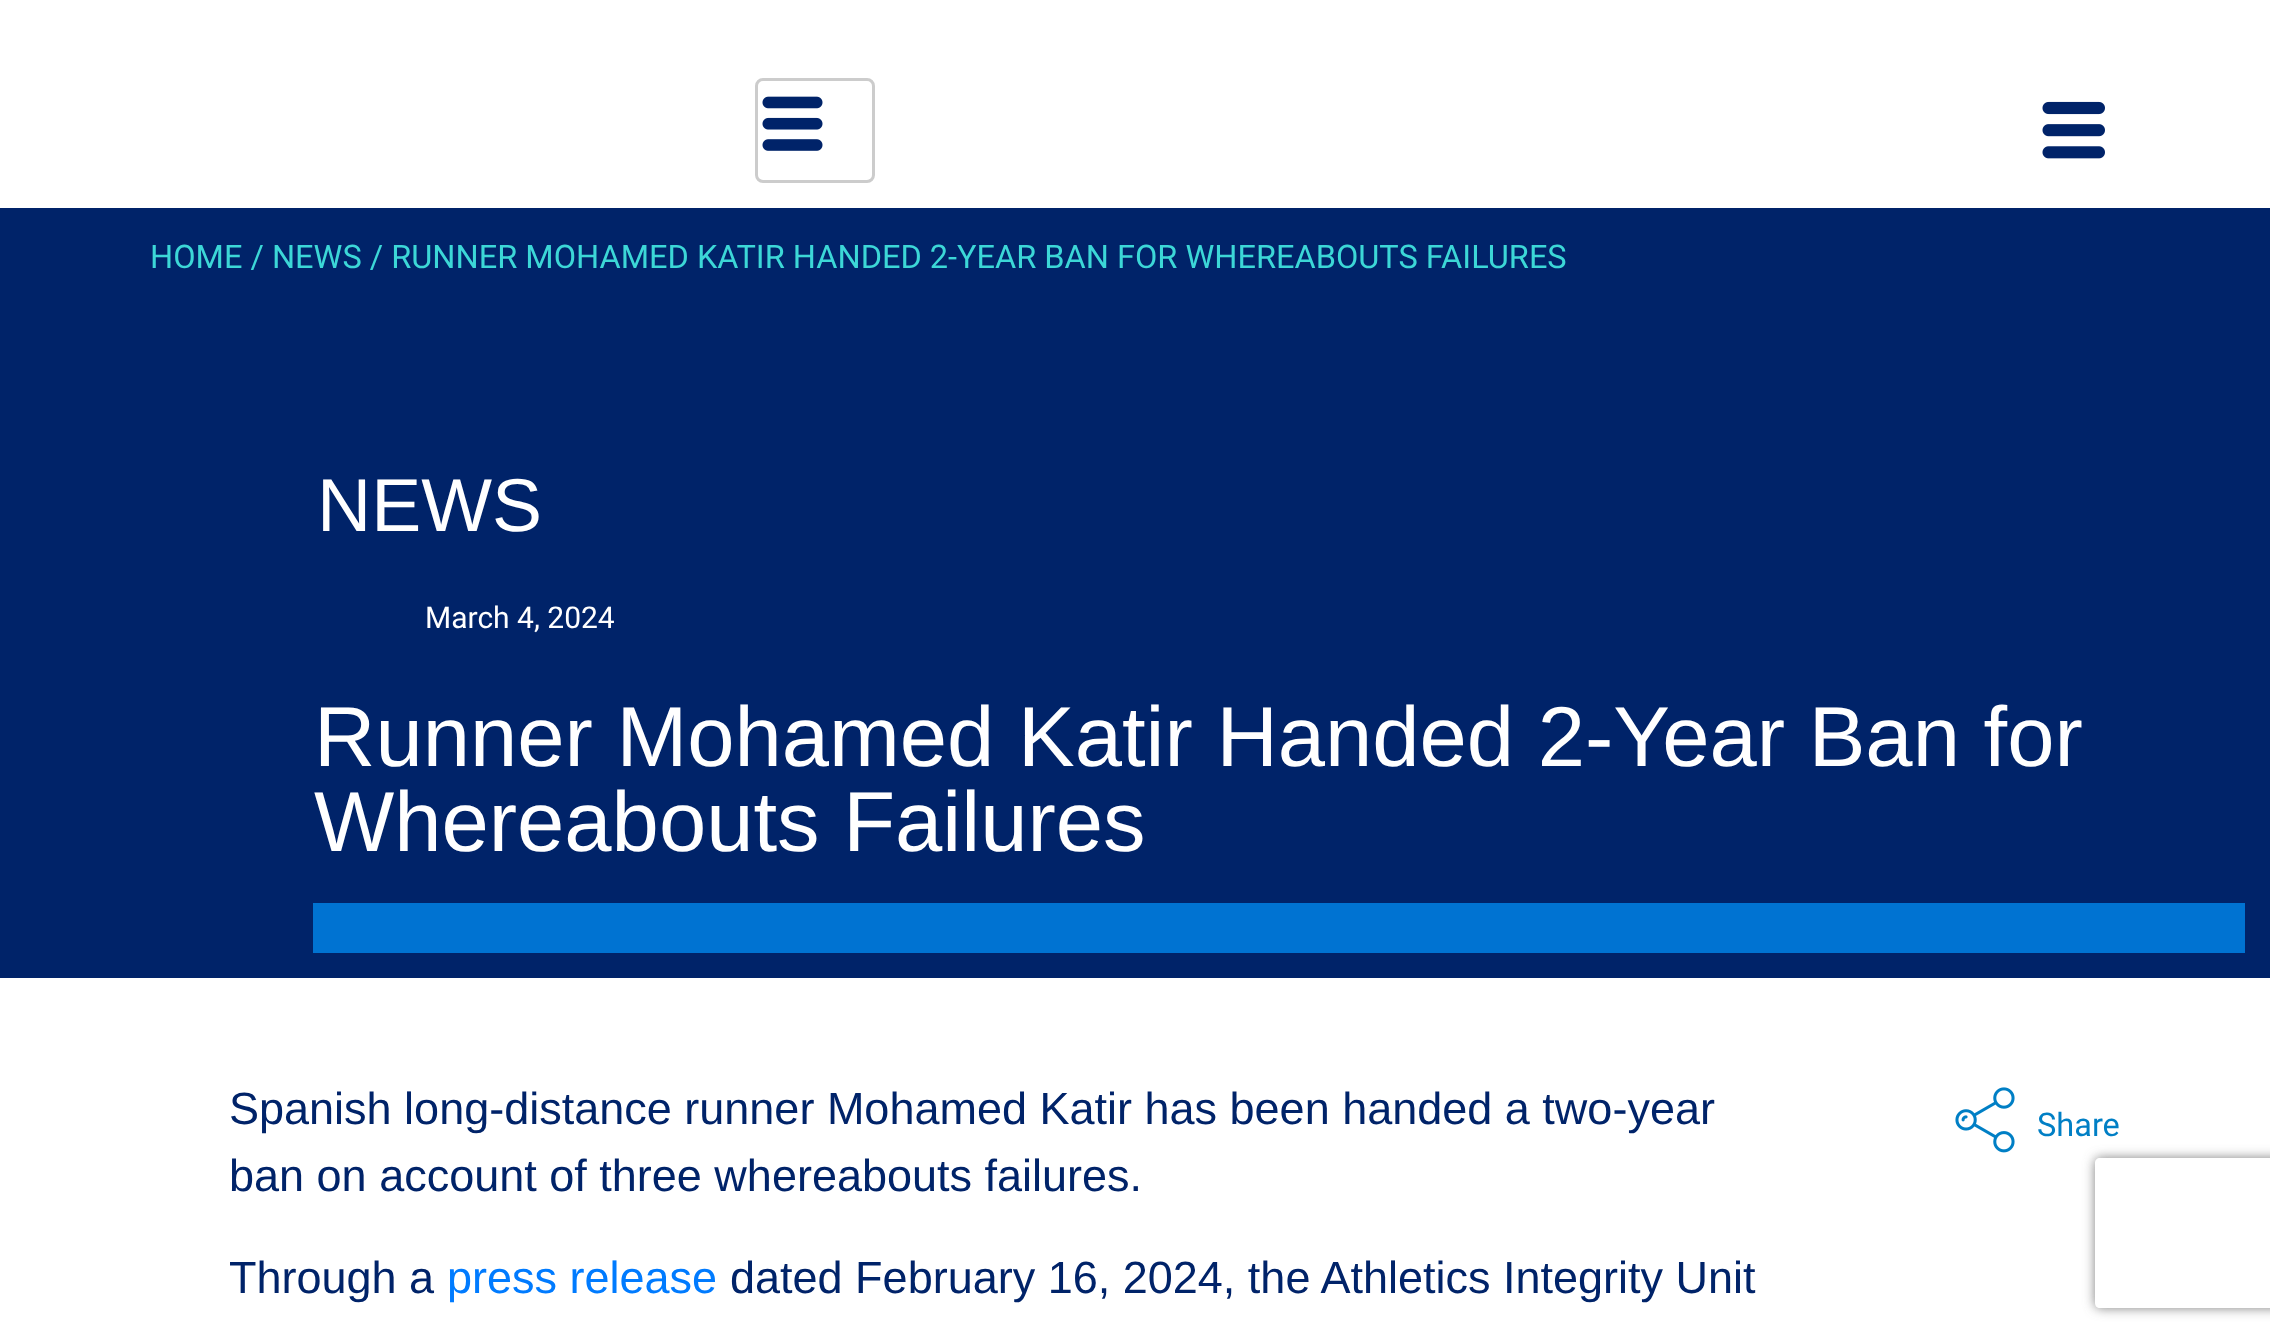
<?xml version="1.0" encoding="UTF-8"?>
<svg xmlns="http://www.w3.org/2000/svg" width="2270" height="1341">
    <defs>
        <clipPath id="clip1"><path d="M 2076 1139 H 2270 V 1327 H 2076 Z M 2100 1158 H 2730 C 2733 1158 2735 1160 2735 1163 V 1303 C 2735 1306 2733 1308 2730 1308 H 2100 C 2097 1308 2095 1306 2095 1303 V 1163 C 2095 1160 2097 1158 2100 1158 Z" clip-rule="evenodd"/></clipPath>
        <filter id="blur1" x="-50%" y="-200%" width="200%" height="500%"><feGaussianBlur stdDeviation="6"/></filter>
    </defs>
    <rect width="100%" height="100%" fill="#FFFFFF"/>
    <rect x="756.5" y="79.5" width="117" height="102" rx="6.5" fill="none" stroke="#CCCCCC" stroke-width="3"/>
    <image x="762" y="96" width="61" height="55" href="img_01.png"/>
    <image x="2042" y="101" width="63" height="58" href="img_02.png"/>
    <rect x="0" y="208" width="2270" height="770" fill="#002369"/>
    <text x="150" y="268" font-family="Roboto" font-size="32.5" fill="#3CD7D7">HOME / NEWS / RUNNER MOHAMED KATIR HANDED 2-YEAR BAN FOR WHEREABOUTS FAILURES</text>
    <text x="317" y="531" font-family="Liberation Sans" font-size="75" fill="#FFFFFF">NEWS</text>
    <text font-family="Liberation Sans" font-size="85" fill="#FFFFFF">
        <tspan x="314" y="766">Runner Mohamed Katir Handed 2-Year Ban for</tspan>
        <tspan x="314" y="851">Whereabouts Failures</tspan>
    </text>
    <rect x="313" y="903" width="1932" height="50" fill="#0073D2"/>
    <text font-family="Liberation Sans" font-size="45" fill="#002369">
        <tspan x="229" y="1124">Spanish long-distance runner Mohamed Katir has been handed a two-year</tspan>
        <tspan x="229" y="1191">ban on account of three whereabouts failures.</tspan>
    </text>
    <text x="229" y="1293" font-family="Liberation Sans" font-size="45" fill="#002369">Through a</text>
    <text x="447" y="1293" font-family="Liberation Sans" font-size="45" fill="#007BFF">press release</text>
    <text x="730" y="1293" font-family="Liberation Sans" font-size="45" fill="#002369">dated February 16, 2024, the Athletics Integrity Unit</text>
    <image x="1955" y="1087" width="60" height="66" href="img_03.png"/>
    <text x="2037" y="1136" font-family="Roboto" font-size="32.5" fill="#007FC5">Share</text>
    <text x="425" y="628" font-family="Roboto" font-size="30" fill="#FFFFFF">March 4, 2024</text>
    <g clip-path="url(#clip1)">
        <rect x="2095" y="1158" width="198" height="150" rx="5" fill="#808080" filter="url(#blur1)"/>
    </g>
</svg>
